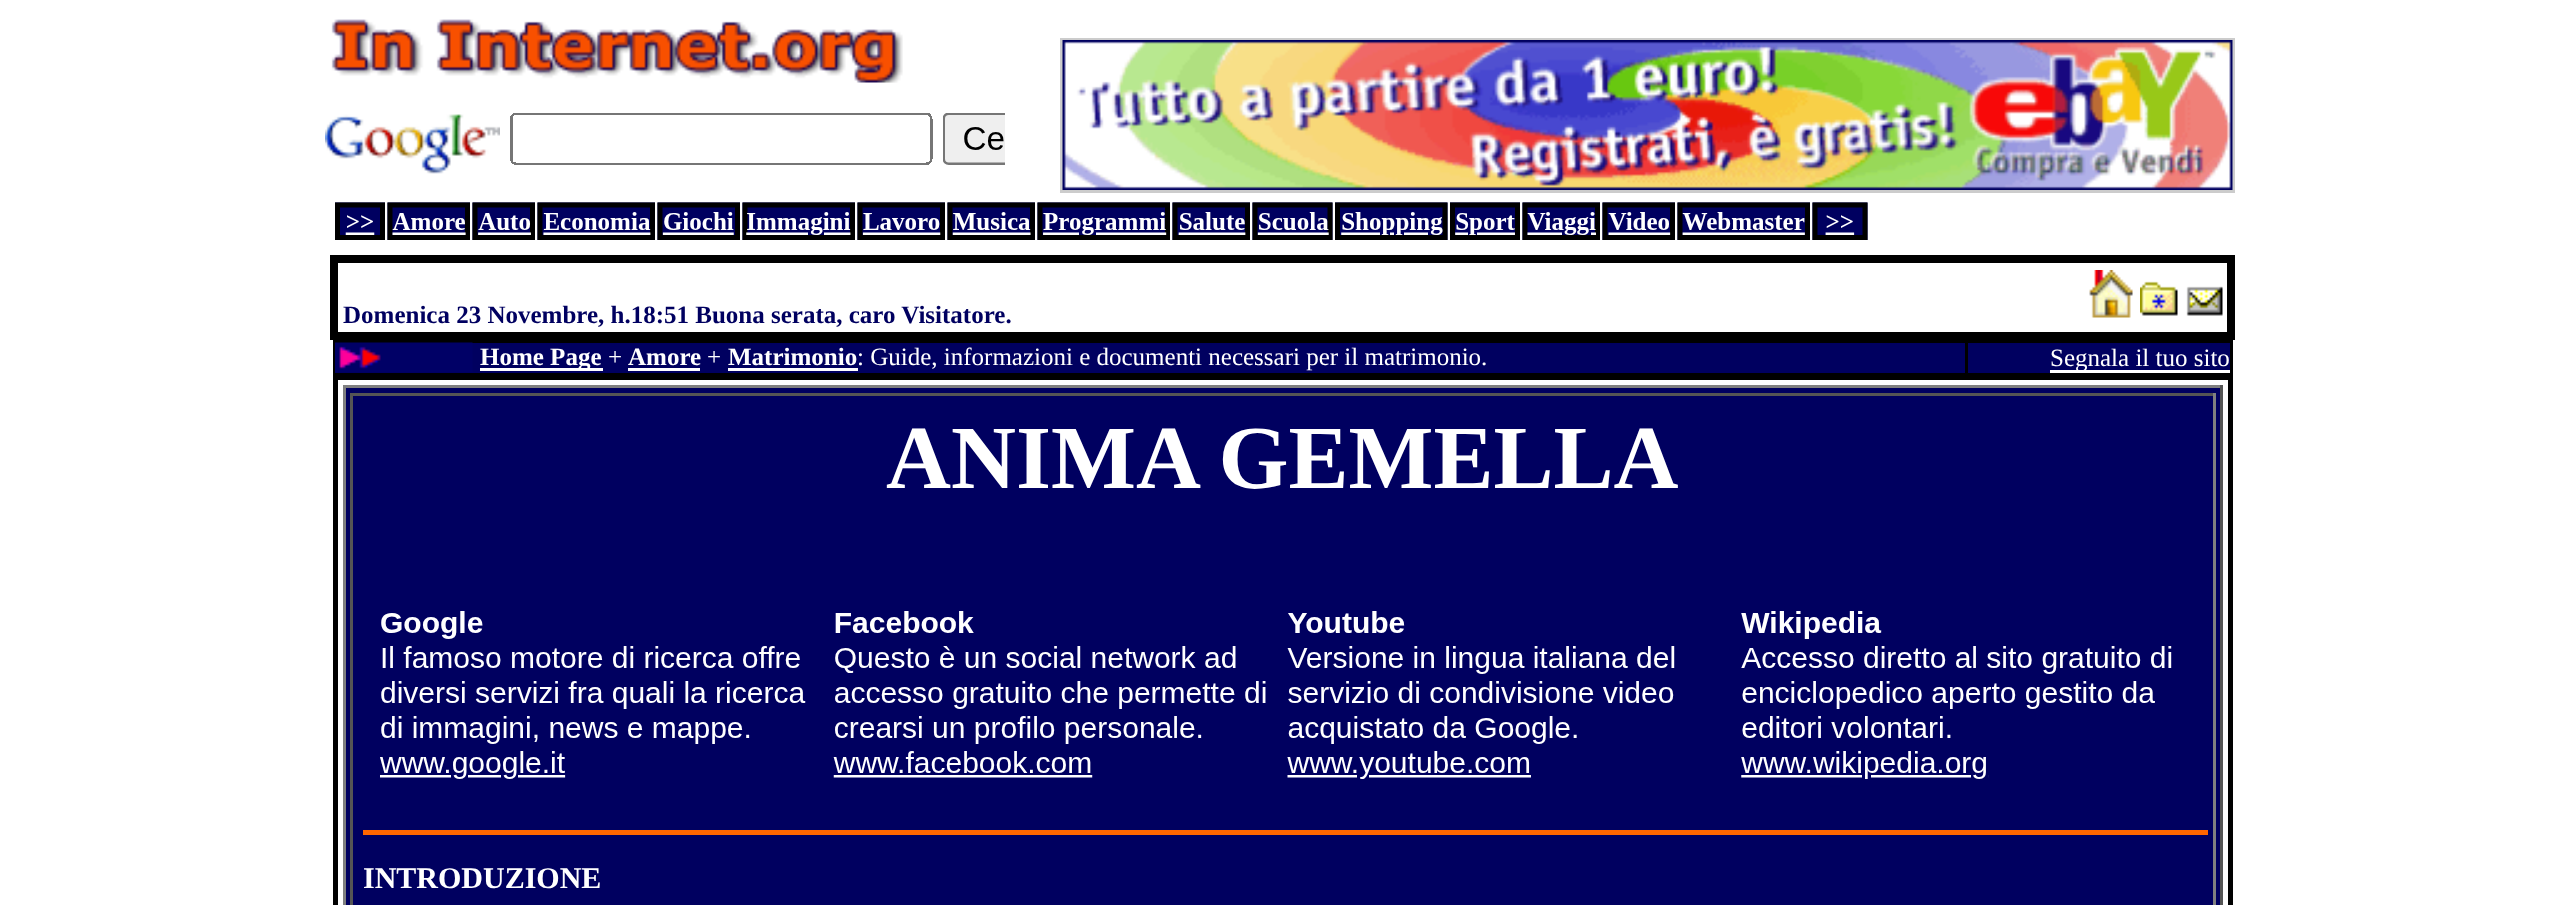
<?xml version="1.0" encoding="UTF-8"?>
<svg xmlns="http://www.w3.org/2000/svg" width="2564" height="905">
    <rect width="100%" height="100%" fill="#FFFFFF"/>
    <image x="331" y="19" width="572" height="64" href="img_01.png"/>
    <rect x="1061.5" y="39.5" width="1172" height="152" fill="none" stroke="#CCCCCC" stroke-width="3"/>
    <image x="1062" y="40" width="1171" height="150" href="img_02.png"/>
    <image x="325" y="113" width="680" height="61" href="img_03.png"/>
    <image x="335" y="202" width="1533" height="38" href="img_04.png"/>
    <rect x="334" y="259" width="1897" height="77" fill="none" stroke="#000000" stroke-width="8"/>
    <text x="343" y="323" font-family="Liberation Serif" font-size="25" font-weight="700" fill="#000060">Domenica 23 Novembre, h.18:51 Buona serata, caro Visitatore.</text>
    <image x="2089" y="270" width="44" height="48" href="img_05.png"/>
    <image x="2140" y="281" width="38" height="35" href="img_06.png"/>
    <image x="2186" y="286" width="37" height="30" href="img_07.png"/>
    <rect x="333" y="340" width="1900" height="565" fill="#000000"/>
    <rect x="335" y="343" width="1630" height="30" fill="#000060"/>
    <image x="335" y="342" width="138" height="30" href="img_08.png"/>
    <rect x="480" y="368" width="123" height="3" fill="#FFFFFF"/>
    <text x="480" y="365" font-family="Liberation Serif" font-size="25" font-weight="700" fill="#FFFFFF">Home Page</text>
    <text x="608" y="365" font-family="Liberation Serif" font-size="25" fill="#FFFFFF">+</text>
    <text x="628" y="365" font-family="Liberation Serif" font-size="25" font-weight="700" fill="#FFFFFF">Amore</text>
    <rect x="628" y="368" width="72" height="3" fill="#FFFFFF"/>
    <text x="707" y="365" font-family="Liberation Serif" font-size="25" fill="#FFFFFF">+</text>
    <text x="728" y="365" font-family="Liberation Serif" font-size="25" font-weight="700" fill="#FFFFFF">Matrimonio</text>
    <text x="857" y="365" font-family="Liberation Serif" font-size="25" fill="#FFFFFF">: Guide, informazioni e documenti necessari per il matrimonio.</text>
    <rect x="728" y="368" width="130" height="3" fill="#FFFFFF"/>
    <rect x="1968" y="343" width="262" height="30" fill="#000060"/>
    <rect x="2050" y="370" width="180" height="3" fill="#FFFFFF"/>
    <text x="2050" y="366" font-family="Liberation Serif" font-size="25" fill="#FFFFFF">Segnala il tuo sito</text>
    <rect x="338" y="380" width="1890" height="525" fill="#FFFFFF"/>
    <rect x="346" y="388" width="1874" height="517" fill="#000060"/>
    <rect x="343" y="385" width="1880" height="3" fill="#808080"/>
    <rect x="2220" y="385" width="3" height="520" fill="#555555"/>
    <rect x="343" y="385" width="3" height="520" fill="#808080"/>
    <rect x="350" y="393" width="1865" height="3" fill="#555555"/>
    <rect x="2213" y="393" width="3" height="512" fill="#808080"/>
    <rect x="350" y="393" width="3" height="512" fill="#555555"/>
    <text x="886" y="488" font-family="Liberation Serif" font-size="90" font-weight="700" fill="#FFFFFF">ANIMA GEMELLA</text>
    <image x="380" y="611" width="1792" height="168" href="img_09.png"/>
    <rect x="363" y="830" width="1845" height="5" fill="#FF6600"/>
    <text x="363" y="888" font-family="Liberation Serif" font-size="30" font-weight="700" fill="#FFFFFF">INTRODUZIONE</text>
</svg>
